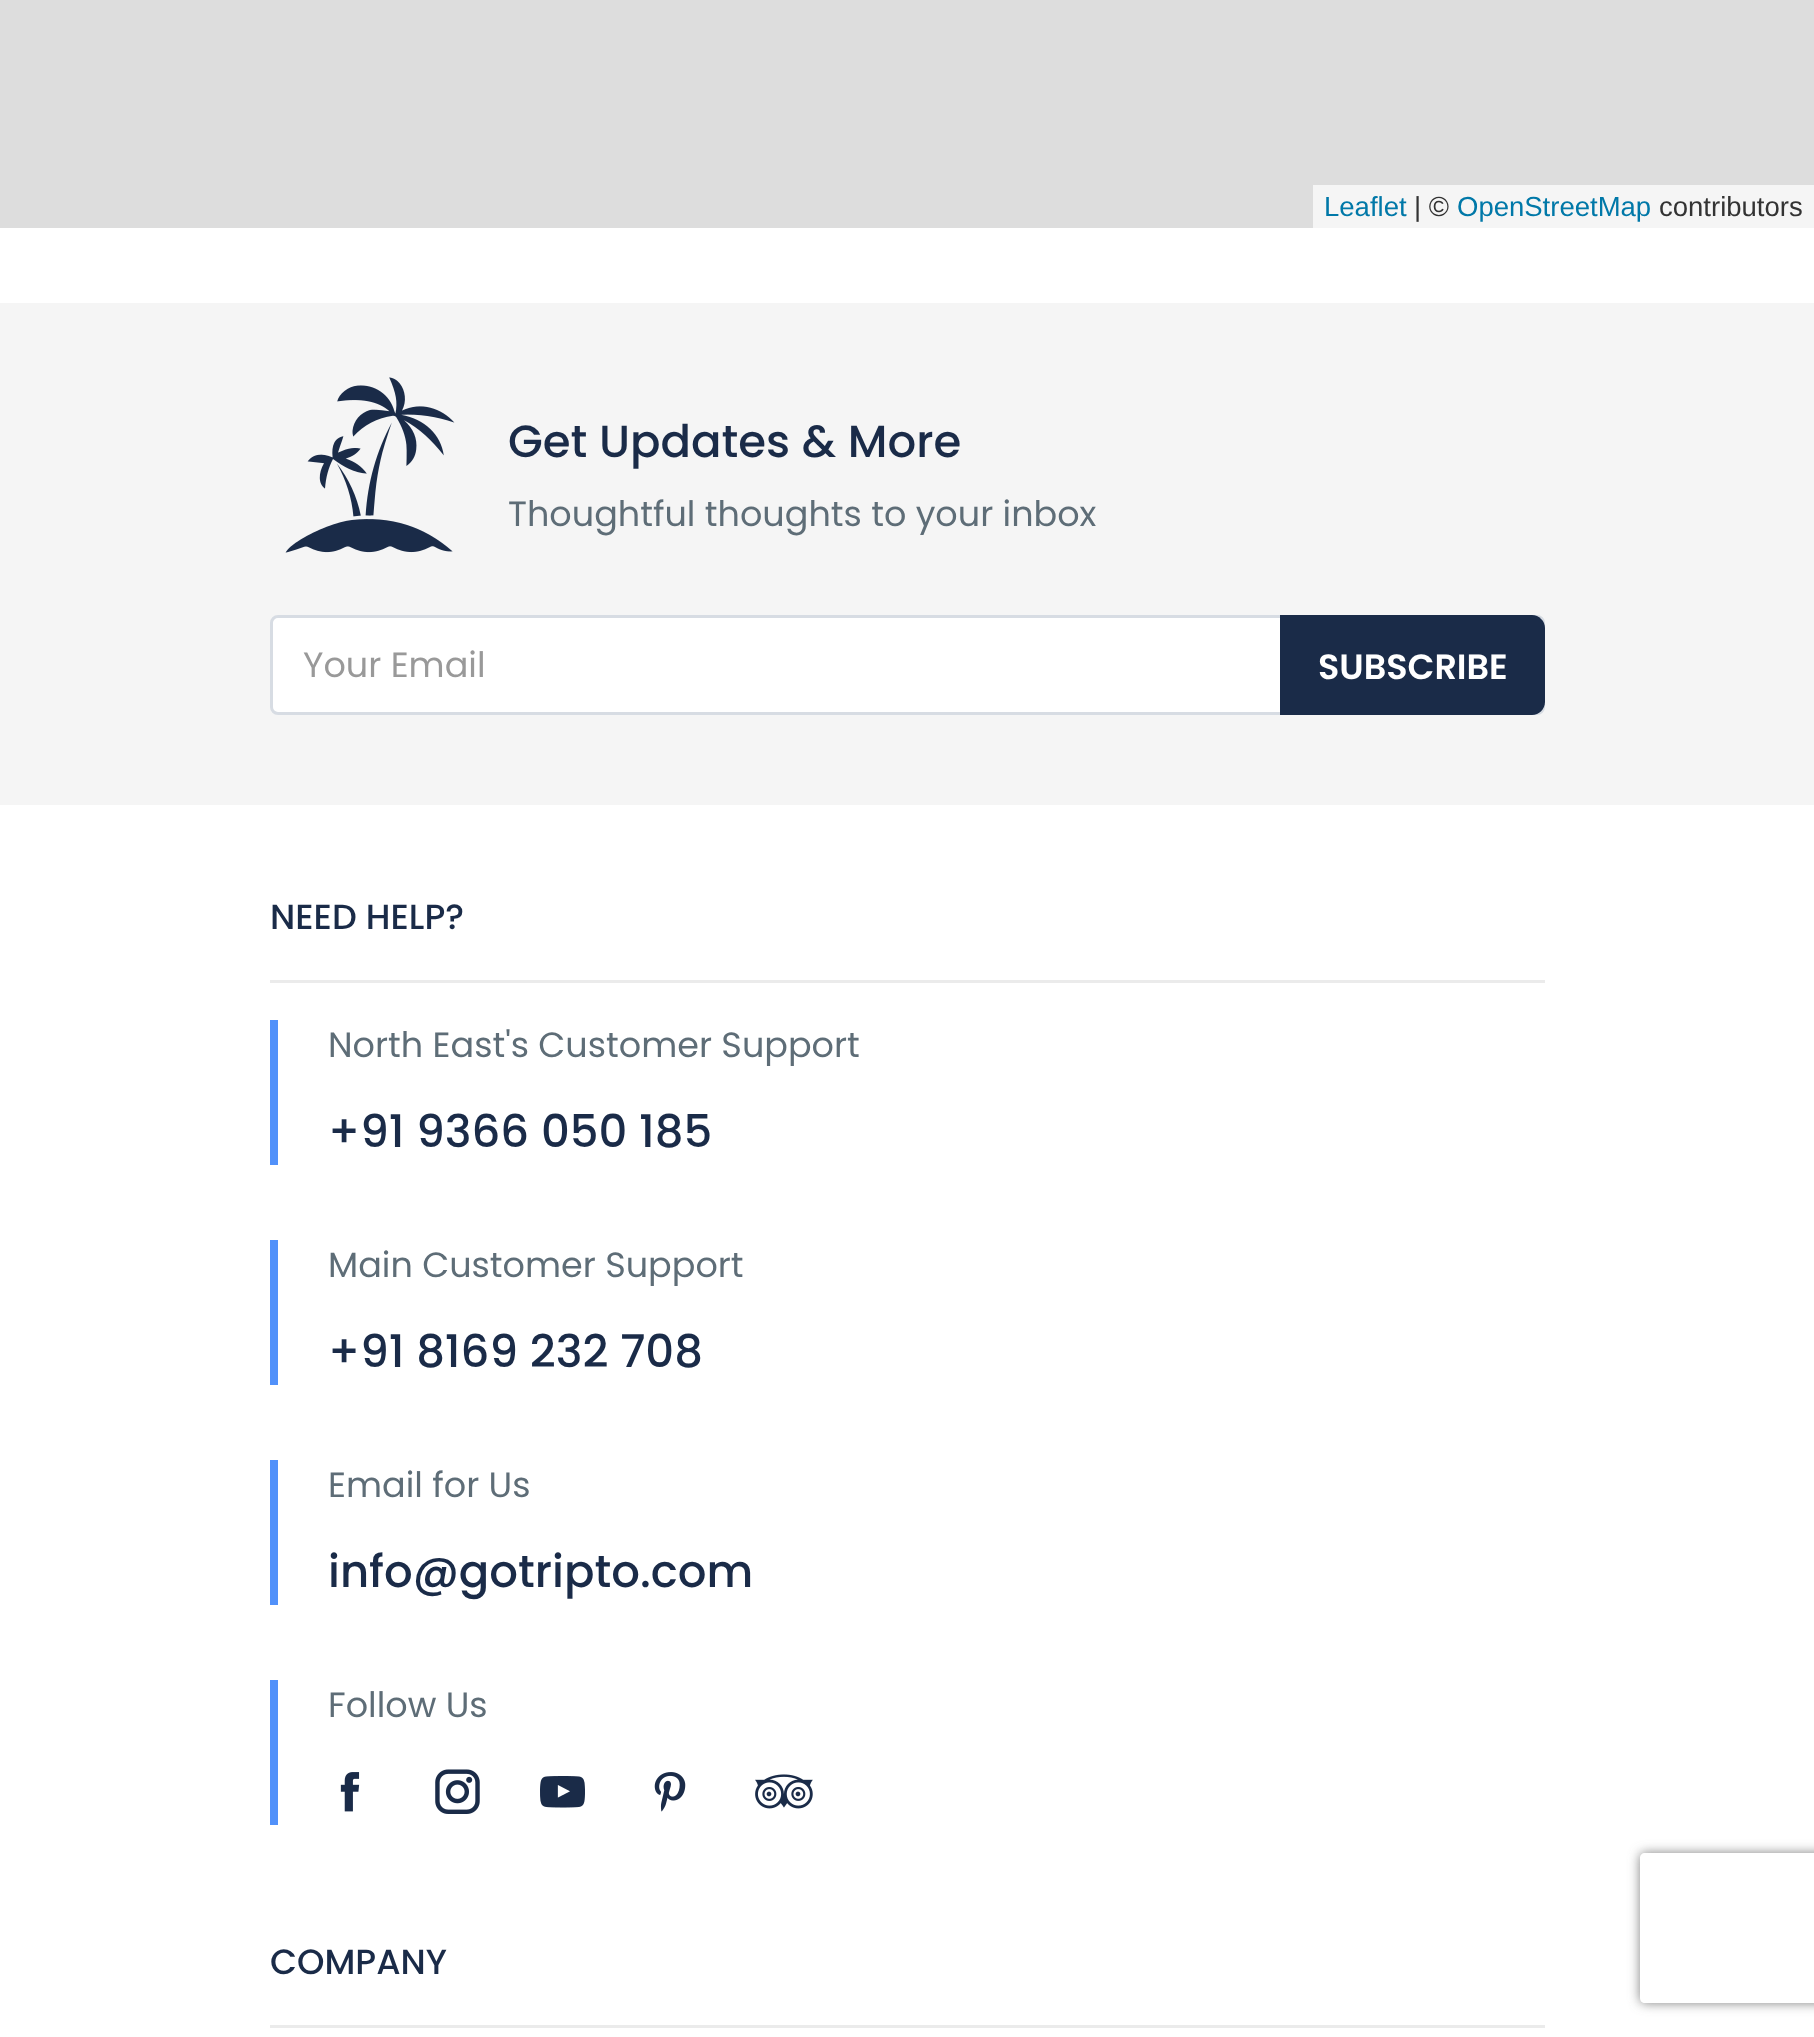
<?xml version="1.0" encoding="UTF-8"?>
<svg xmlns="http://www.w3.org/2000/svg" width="1814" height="2037">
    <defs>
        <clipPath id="clip1"><path d="M 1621 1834 H 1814 V 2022 H 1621 Z M 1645 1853 H 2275 C 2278 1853 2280 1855 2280 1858 V 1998 C 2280 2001 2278 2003 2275 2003 H 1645 C 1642 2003 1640 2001 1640 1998 V 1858 C 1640 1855 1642 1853 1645 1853 Z" clip-rule="evenodd"/></clipPath>
        <filter id="blur1" x="-50%" y="-200%" width="200%" height="500%"><feGaussianBlur stdDeviation="6"/></filter>
    </defs>
    <rect width="100%" height="100%" fill="#FFFFFF"/>
    <rect x="0" y="0" width="1814" height="228" fill="#DDDDDD"/>
    <rect x="1313" y="185" width="501" height="43" fill="#F5F5F5"/>
    <text x="1324" y="216" font-family="Liberation Sans" font-size="27.5" fill="#0078A8">Leaflet</text>
    <text x="1414" y="216" font-family="Liberation Sans" font-size="27.5" fill="#333333">| ©</text>
    <text x="1457" y="216" font-family="Liberation Sans" font-size="27.5" fill="#0078A8">OpenStreetMap</text>
    <text x="1659" y="216" font-family="Liberation Sans" font-size="27.5" fill="#333333">contributors</text>
    <rect x="0" y="303" width="1814" height="502" fill="#F5F5F5"/>
    <image x="285" y="377" width="170" height="176" href="img_01.png"/>
    <text x="508" y="457" font-family="Poppins" font-size="45" font-weight="500" fill="#1A2B48">Get Updates &amp; More</text>
    <text x="508" y="526" font-family="Poppins" font-size="35" fill="#5E6D77">Thoughtful thoughts to your inbox</text>
    <rect x="271.5" y="616.5" width="1272" height="97" rx="6.5" fill="#FFFFFF" stroke="#D7DCE3" stroke-width="3"/>
    <text x="303" y="677" font-family="Poppins" font-size="35" fill="#999999">Your Email</text>
    <path d="M 1280 615 H 1532 C 1539 615 1545 621 1545 628 V 702 C 1545 709 1539 715 1532 715 H 1280 Z" fill="#1A2B48"/>
    <text x="1318" y="679" font-family="Poppins" font-size="35" font-weight="600" fill="#FFFFFF">SUBSCRIBE</text>
    <text x="270" y="929" font-family="Poppins" font-size="35" font-weight="500" fill="#1A2B48">NEED HELP?</text>
    <rect x="270" y="980" width="1275" height="3" fill="#EBEBEB"/>
    <rect x="270" y="1020" width="8" height="145" fill="#5191FA"/>
    <text x="328" y="1057" font-family="Poppins" font-size="35" fill="#5E6D77">North East's Customer Support</text>
    <text x="328" y="1147" font-family="Poppins" font-size="45" font-weight="500" fill="#1A2B48">+91 9366 050 185</text>
    <rect x="270" y="1240" width="8" height="145" fill="#5191FA"/>
    <text x="328" y="1277" font-family="Poppins" font-size="35" fill="#5E6D77">Main Customer Support</text>
    <text x="328" y="1367" font-family="Poppins" font-size="45" font-weight="500" fill="#1A2B48">+91 8169 232 708</text>
    <rect x="270" y="1460" width="8" height="145" fill="#5191FA"/>
    <text x="328" y="1497" font-family="Poppins" font-size="35" fill="#5E6D77">Email for Us</text>
    <text x="328" y="1587" font-family="Poppins" font-size="45" font-weight="500" fill="#1A2B48">info@gotripto.com</text>
    <rect x="270" y="1680" width="8" height="145" fill="#5191FA"/>
    <text x="328" y="1717" font-family="Poppins" font-size="35" fill="#5E6D77">Follow Us</text>
    <image x="340" y="1772" width="20" height="40" href="img_02.png"/>
    <image x="435" y="1769" width="45" height="45" href="img_03.png"/>
    <image x="540" y="1776" width="45" height="32" href="img_04.png"/>
    <image x="654" y="1772" width="32" height="40" href="img_05.png"/>
    <image x="755" y="1774" width="58" height="35" href="img_06.png"/>
    <text x="270" y="1974" font-family="Poppins" font-size="35" font-weight="500" fill="#1A2B48">COMPANY</text>
    <rect x="270" y="2025" width="1275" height="3" fill="#EBEBEB"/>
    <g clip-path="url(#clip1)">
        <rect x="1640" y="1853" width="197" height="150" rx="5" fill="#808080" filter="url(#blur1)"/>
    </g>
</svg>
